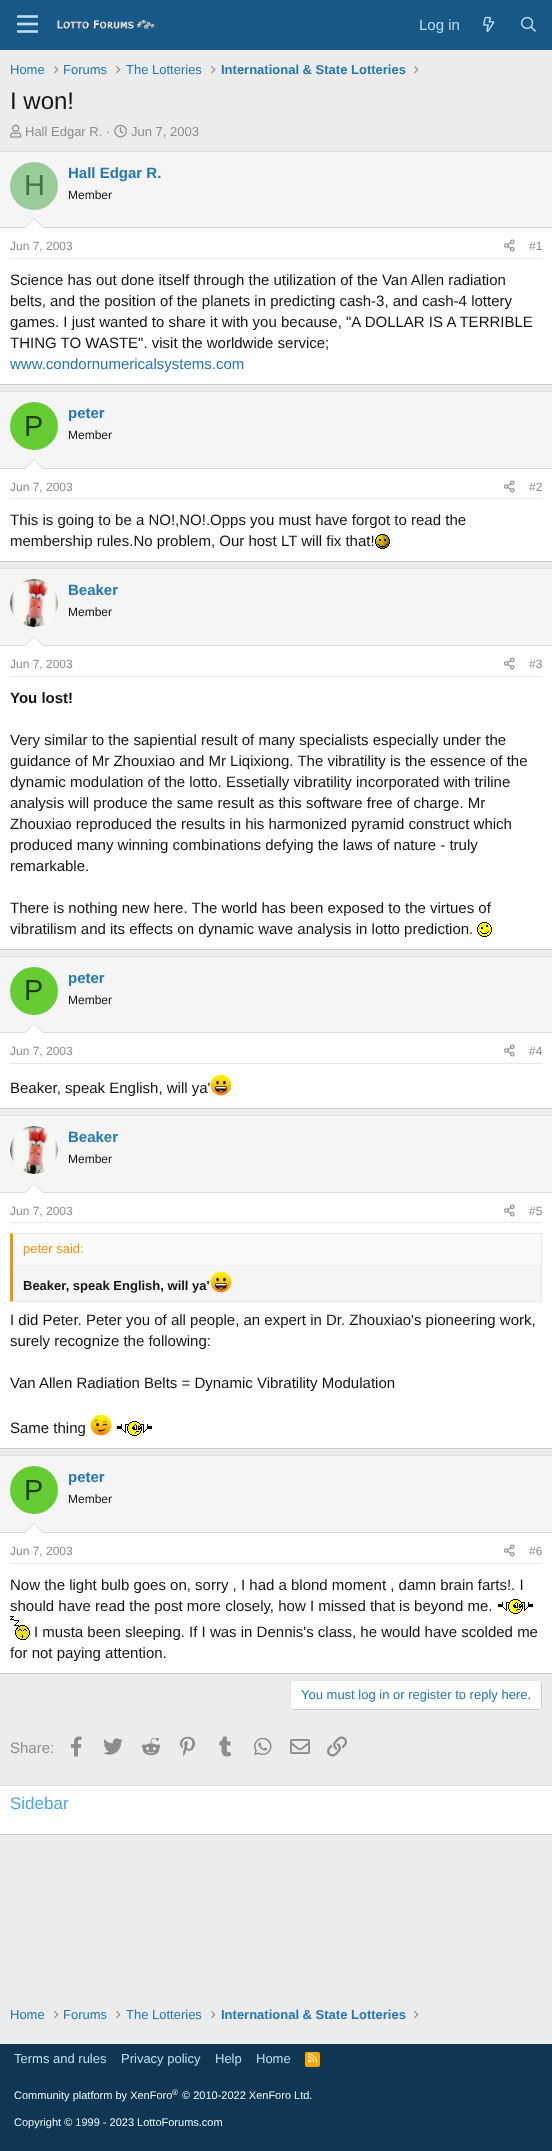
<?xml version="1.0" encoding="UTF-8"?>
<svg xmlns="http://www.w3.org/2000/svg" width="552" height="2151">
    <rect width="100%" height="100%" fill="#ECECEC"/>
    <rect x="0" y="0" width="552" height="50" fill="#185886"/>
    <image x="17" y="15" width="21" height="18" href="img_01.png"/>
    <image x="56" y="19" width="99" height="11" href="img_02.png"/>
    <text x="419" y="30" font-family="Liberation Sans" font-size="15" fill="#BCDEF5">Log in</text>
    <image x="483" y="16" width="12" height="16" href="img_03.png"/>
    <image x="521" y="16" width="15" height="16" href="img_04.png"/>
    <text x="10" y="74" font-family="Liberation Sans" font-size="13" fill="#2577B1">Home</text>
    <image x="54" y="66" width="5" height="8" href="img_05.png"/>
    <text x="63" y="74" font-family="Liberation Sans" font-size="13" fill="#2577B1">Forums</text>
    <image x="116" y="66" width="5" height="8" href="img_05.png"/>
    <text x="126" y="74" font-family="Liberation Sans" font-size="13" fill="#2577B1">The Lotteries</text>
    <image x="211" y="66" width="5" height="8" href="img_05.png"/>
    <text x="221" y="74" font-family="Liberation Sans" font-size="13" font-weight="700" fill="#2577B1">International &amp; State Lotteries</text>
    <image x="414" y="66" width="5" height="8" href="img_05.png"/>
    <text x="10" y="109" font-family="Liberation Sans" font-size="24" fill="#141414">I won!</text>
    <image x="10" y="124" width="12" height="14" href="img_06.png"/>
    <text x="25" y="136" font-family="Liberation Sans" font-size="13" fill="#8C8C8C">Hall Edgar R. ·</text>
    <image x="114" y="124" width="13" height="14" href="img_07.png"/>
    <text x="131" y="136" font-family="Liberation Sans" font-size="13" fill="#8C8C8C">Jun 7, 2003</text>
    <rect x="0" y="228" width="552" height="156" fill="#FEFEFE"/>
    <rect x="0" y="151" width="552" height="1" fill="#DFDFDF"/>
    <rect x="0" y="384" width="552" height="1" fill="#CBCBCB"/>
    <rect x="0" y="152" width="552" height="75" fill="#F5F5F5"/>
    <rect x="0" y="227" width="552" height="1" fill="#D8D8D8"/>
    <circle cx="34" cy="186" r="24" fill="#99CC99"/>
    <text x="24" y="195" font-family="Liberation Sans" font-size="29" fill="#3C773C">H</text>
    <text x="68" y="178" font-family="Liberation Sans" font-size="15" font-weight="700" fill="#2577B1">Hall Edgar R.</text>
    <text x="68" y="199" font-family="Liberation Sans" font-size="12" fill="#141414">Member</text>
    <path d="M 44 228 H 24 L 34 218 Z" fill="#D8D8D8"/>
    <path d="M 43 228 H 25 L 34 219 Z" fill="#FEFEFE"/>
    <rect x="10" y="258" width="532" height="1" fill="#E7E7E7"/>
    <text x="10" y="250" font-family="Liberation Sans" font-size="12" fill="#8C8C8C">Jun 7, 2003</text>
    <image x="504" y="239" width="11" height="13" href="img_08.png"/>
    <text x="529" y="250" font-family="Liberation Sans" font-size="12" fill="#8C8C8C">#1</text>
    <text font-family="Liberation Sans" font-size="15" fill="#141414">
        <tspan x="10" y="285">Science has out done itself through the utilization of the Van Allen radiation</tspan>
        <tspan x="10" y="306">belts, and the position of the planets in predicting cash-3, and cash-4 lottery</tspan>
        <tspan x="10" y="327">games. I just wanted to share it with you because, "A DOLLAR IS A TERRIBLE</tspan>
        <tspan x="10" y="348">THING TO WASTE". visit the worldwide service;</tspan>
    </text>
    <text x="10" y="369" font-family="Liberation Sans" font-size="15" fill="#2577B1">www.condornumericalsystems.com</text>
    <rect x="0" y="469" width="552" height="92" fill="#FEFEFE"/>
    <rect x="0" y="391" width="552" height="1" fill="#DFDFDF"/>
    <rect x="0" y="561" width="552" height="1" fill="#CBCBCB"/>
    <rect x="0" y="392" width="552" height="76" fill="#F5F5F5"/>
    <rect x="0" y="468" width="552" height="1" fill="#D8D8D8"/>
    <circle cx="34" cy="426" r="24" fill="#66CC33"/>
    <text x="24" y="436" font-family="Liberation Sans" font-size="29" fill="#1F3D0F">P</text>
    <text x="68" y="418" font-family="Liberation Sans" font-size="15" font-weight="700" fill="#2577B1">peter</text>
    <text x="68" y="439" font-family="Liberation Sans" font-size="12" fill="#141414">Member</text>
    <path d="M 44 469 H 24 L 34 459 Z" fill="#D8D8D8"/>
    <path d="M 43 469 H 25 L 34 460 Z" fill="#FEFEFE"/>
    <rect x="10" y="498" width="532" height="1" fill="#E7E7E7"/>
    <text x="10" y="491" font-family="Liberation Sans" font-size="12" fill="#8C8C8C">Jun 7, 2003</text>
    <image x="504" y="480" width="11" height="13" href="img_08.png"/>
    <text x="529" y="491" font-family="Liberation Sans" font-size="12" fill="#8C8C8C">#2</text>
    <text font-family="Liberation Sans" font-size="15" fill="#141414">
        <tspan x="10" y="525">This is going to be a NO!,NO!.Opps you must have forgot to read the</tspan>
        <tspan x="10" y="546">membership rules.No problem, Our host LT will fix that!</tspan>
    </text>
    <image x="375" y="534" width="15" height="15" href="img_09.png"/>
    <rect x="0" y="646" width="552" height="303" fill="#FEFEFE"/>
    <rect x="0" y="568" width="552" height="1" fill="#DFDFDF"/>
    <rect x="0" y="949" width="552" height="1" fill="#CBCBCB"/>
    <rect x="0" y="569" width="552" height="76" fill="#F5F5F5"/>
    <rect x="0" y="645" width="552" height="1" fill="#D8D8D8"/>
    <circle cx="34" cy="603" r="24" fill="#FEFEFE"/>
    <image x="10" y="579" width="48" height="48" href="img_10.png"/>
    <text x="68" y="595" font-family="Liberation Sans" font-size="15" font-weight="700" fill="#2577B1">Beaker</text>
    <text x="68" y="616" font-family="Liberation Sans" font-size="12" fill="#141414">Member</text>
    <path d="M 44 646 H 24 L 34 636 Z" fill="#D8D8D8"/>
    <path d="M 43 646 H 25 L 34 637 Z" fill="#FEFEFE"/>
    <rect x="10" y="676" width="532" height="1" fill="#E7E7E7"/>
    <text x="10" y="668" font-family="Liberation Sans" font-size="12" fill="#8C8C8C">Jun 7, 2003</text>
    <image x="504" y="657" width="11" height="13" href="img_08.png"/>
    <text x="529" y="668" font-family="Liberation Sans" font-size="12" fill="#8C8C8C">#3</text>
    <text x="10" y="703" font-family="Liberation Sans" font-size="15" font-weight="700" fill="#141414">You lost!</text>
    <text font-family="Liberation Sans" font-size="15" fill="#141414">
        <tspan x="10" y="745">Very similar to the sapiential result of many specialists especially under the</tspan>
        <tspan x="10" y="766">guidance of Mr Zhouxiao and Mr Liqixiong. The vibratility is the essence of the</tspan>
        <tspan x="10" y="787">dynamic modulation of the lotto. Essetially vibratility incorporated with triline</tspan>
        <tspan x="10" y="808">analysis will produce the same result as this software free of charge. Mr</tspan>
        <tspan x="10" y="829">Zhouxiao reproduced the results in his harmonized pyramid construct which</tspan>
        <tspan x="10" y="850">produced many winning combinations defying the laws of nature - truly</tspan>
        <tspan x="10" y="871">remarkable.</tspan>
    </text>
    <text font-family="Liberation Sans" font-size="15" fill="#141414">
        <tspan x="10" y="913">There is nothing new here. The world has been exposed to the virtues of</tspan>
        <tspan x="10" y="934">vibratilism and its effects on dynamic wave analysis in lotto prediction.</tspan>
    </text>
    <image x="477" y="922" width="15" height="15" href="img_11.png"/>
    <rect x="0" y="1033" width="552" height="75" fill="#FEFEFE"/>
    <rect x="0" y="956" width="552" height="1" fill="#DFDFDF"/>
    <rect x="0" y="1108" width="552" height="1" fill="#CBCBCB"/>
    <rect x="0" y="957" width="552" height="75" fill="#F5F5F5"/>
    <rect x="0" y="1032" width="552" height="1" fill="#D8D8D8"/>
    <circle cx="34" cy="991" r="24" fill="#66CC33"/>
    <text x="24" y="1000" font-family="Liberation Sans" font-size="29" fill="#1F3D0F">P</text>
    <text x="68" y="983" font-family="Liberation Sans" font-size="15" font-weight="700" fill="#2577B1">peter</text>
    <text x="68" y="1004" font-family="Liberation Sans" font-size="12" fill="#141414">Member</text>
    <path d="M 44 1033 H 24 L 34 1023 Z" fill="#D8D8D8"/>
    <path d="M 43 1033 H 25 L 34 1024 Z" fill="#FEFEFE"/>
    <rect x="10" y="1063" width="532" height="1" fill="#E7E7E7"/>
    <text x="10" y="1055" font-family="Liberation Sans" font-size="12" fill="#8C8C8C">Jun 7, 2003</text>
    <image x="504" y="1044" width="11" height="13" href="img_08.png"/>
    <text x="529" y="1055" font-family="Liberation Sans" font-size="12" fill="#8C8C8C">#4</text>
    <text x="10" y="1093" font-family="Liberation Sans" font-size="15" fill="#141414">Beaker, speak English, will ya'</text>
    <image x="210" y="1074" width="22" height="22" href="img_12.png"/>
    <rect x="0" y="1193" width="552" height="255" fill="#FEFEFE"/>
    <rect x="0" y="1115" width="552" height="1" fill="#DFDFDF"/>
    <rect x="0" y="1448" width="552" height="1" fill="#CBCBCB"/>
    <rect x="0" y="1116" width="552" height="76" fill="#F5F5F5"/>
    <rect x="0" y="1192" width="552" height="1" fill="#D8D8D8"/>
    <circle cx="34" cy="1150" r="24" fill="#FEFEFE"/>
    <image x="10" y="1126" width="48" height="48" href="img_10.png"/>
    <text x="68" y="1142" font-family="Liberation Sans" font-size="15" font-weight="700" fill="#2577B1">Beaker</text>
    <text x="68" y="1163" font-family="Liberation Sans" font-size="12" fill="#141414">Member</text>
    <path d="M 44 1193 H 24 L 34 1183 Z" fill="#D8D8D8"/>
    <path d="M 43 1193 H 25 L 34 1184 Z" fill="#FEFEFE"/>
    <rect x="10" y="1222" width="532" height="1" fill="#E7E7E7"/>
    <text x="10" y="1215" font-family="Liberation Sans" font-size="12" fill="#8C8C8C">Jun 7, 2003</text>
    <image x="504" y="1204" width="11" height="13" href="img_08.png"/>
    <text x="529" y="1215" font-family="Liberation Sans" font-size="12" fill="#8C8C8C">#5</text>
    <rect x="13" y="1265" width="528" height="36" fill="#F5F5F5"/>
    <path d="M 10 1233 H 542 L 541 1234 H 13 Z" fill="#E7E7E7"/>
    <rect x="541" y="1233" width="1" height="69" fill="#E7E7E7"/>
    <path d="M 542 1302 H 10 L 13 1301 H 541 Z" fill="#E7E7E7"/>
    <path d="M 10 1302 V 1233 L 13 1234 V 1301 Z" fill="#F2930D"/>
    <rect x="13" y="1234" width="528" height="31" fill="#FAFAFA"/>
    <text x="23" y="1253" font-family="Liberation Sans" font-size="13" fill="#F2930D">peter said:</text>
    <text x="23" y="1290" font-family="Liberation Sans" font-size="13" font-weight="700" fill="#141414">Beaker, speak English, will ya'</text>
    <image x="210" y="1271" width="22" height="22" href="img_13.png"/>
    <text font-family="Liberation Sans" font-size="15" fill="#141414">
        <tspan x="10" y="1325">I did Peter. Peter you of all people, an expert in Dr. Zhouxiao's pioneering work,</tspan>
        <tspan x="10" y="1346">surely recognize the following:</tspan>
    </text>
    <text x="10" y="1388" font-family="Liberation Sans" font-size="15" fill="#141414">Van Allen Radiation Belts = Dynamic Vibratility Modulation</text>
    <text x="10" y="1433" font-family="Liberation Sans" font-size="15" fill="#141414">Same thing</text>
    <image x="90" y="1414" width="22" height="22" href="img_14.png"/>
    <image x="117" y="1421" width="35" height="15" href="img_15.png"/>
    <rect x="0" y="1533" width="552" height="140" fill="#FEFEFE"/>
    <rect x="0" y="1455" width="552" height="1" fill="#DFDFDF"/>
    <rect x="0" y="1673" width="552" height="1" fill="#CBCBCB"/>
    <rect x="0" y="1456" width="552" height="76" fill="#F5F5F5"/>
    <rect x="0" y="1532" width="552" height="1" fill="#D8D8D8"/>
    <circle cx="34" cy="1490" r="24" fill="#66CC33"/>
    <text x="24" y="1500" font-family="Liberation Sans" font-size="29" fill="#1F3D0F">P</text>
    <text x="68" y="1482" font-family="Liberation Sans" font-size="15" font-weight="700" fill="#2577B1">peter</text>
    <text x="68" y="1503" font-family="Liberation Sans" font-size="12" fill="#141414">Member</text>
    <path d="M 44 1533 H 24 L 34 1523 Z" fill="#D8D8D8"/>
    <path d="M 43 1533 H 25 L 34 1524 Z" fill="#FEFEFE"/>
    <rect x="10" y="1563" width="532" height="1" fill="#E7E7E7"/>
    <text x="10" y="1555" font-family="Liberation Sans" font-size="12" fill="#8C8C8C">Jun 7, 2003</text>
    <image x="504" y="1544" width="11" height="13" href="img_08.png"/>
    <text x="529" y="1555" font-family="Liberation Sans" font-size="12" fill="#8C8C8C">#6</text>
    <text font-family="Liberation Sans" font-size="15" fill="#141414">
        <tspan x="10" y="1590">Now the light bulb goes on, sorry , I had a blond moment , damn brain farts!. I</tspan>
        <tspan x="10" y="1611">should have read the post more closely, how I missed that is beyond me.</tspan>
    </text>
    <image x="498" y="1599" width="35" height="15" href="img_15.png"/>
    <image x="10" y="1616" width="20" height="24" href="img_16.png"/>
    <text x="34" y="1637" font-family="Liberation Sans" font-size="15" fill="#141414">I musta been sleeping. If I was in Dennis's class, he would have scolded me</text>
    <text x="10" y="1658" font-family="Liberation Sans" font-size="15" fill="#141414">for not paying attention.</text>
    <rect x="290" y="1680" width="252" height="30" rx="4" fill="#FEFEFE"/>
    <path d="M 540.5 1681.5 C 541 1682 541.5 1683 541.5 1684 V 1706 C 541.5 1707 541 1708 540.5 1708.5 C 540 1709 539 1709.5 538 1709.5 H 294 C 293 1709.5 292 1709 291.5 1708.5" fill="none" stroke="#CBCBCB"/>
    <path d="M 291.5 1708.5 C 291 1708 290.5 1707 290.5 1706 V 1684 C 290.5 1683 291 1682 291.5 1681.5 C 292 1681 293 1680.5 294 1680.5 H 538 C 539 1680.5 540 1681 540.5 1681.5" fill="none" stroke="#E5E5E5"/>
    <text x="301" y="1699" font-family="Liberation Sans" font-size="13" fill="#2577B1">You must log in or register to reply here.</text>
    <text x="10" y="1753" font-family="Liberation Sans" font-size="15" fill="#8C8C8C">Share:</text>
    <image x="70" y="1736" width="12" height="21" href="img_17.png"/>
    <image x="103" y="1738" width="20" height="17" href="img_18.png"/>
    <image x="141" y="1737" width="20" height="19" href="img_19.png"/>
    <image x="180" y="1736" width="15" height="21" href="img_20.png"/>
    <image x="219" y="1736" width="13" height="21" href="img_21.png"/>
    <image x="254" y="1737" width="18" height="19" href="img_22.png"/>
    <image x="290" y="1739" width="20" height="15" href="img_23.png"/>
    <image x="327" y="1736" width="20" height="21" href="img_24.png"/>
    <rect x="0" y="1786" width="552" height="48" fill="#FEFEFE"/>
    <rect x="0" y="1785" width="552" height="1" fill="#DFDFDF"/>
    <rect x="0" y="1834" width="552" height="1" fill="#CBCBCB"/>
    <text x="10" y="1809" font-family="Liberation Sans" font-size="17" fill="#47A7EB">Sidebar</text>
    <text x="10" y="2019" font-family="Liberation Sans" font-size="13" fill="#2577B1">Home</text>
    <image x="54" y="2011" width="5" height="8" href="img_05.png"/>
    <text x="63" y="2019" font-family="Liberation Sans" font-size="13" fill="#2577B1">Forums</text>
    <image x="116" y="2011" width="5" height="8" href="img_05.png"/>
    <text x="126" y="2019" font-family="Liberation Sans" font-size="13" fill="#2577B1">The Lotteries</text>
    <image x="211" y="2011" width="5" height="8" href="img_05.png"/>
    <text x="221" y="2019" font-family="Liberation Sans" font-size="13" font-weight="700" fill="#2577B1">International &amp; State Lotteries</text>
    <image x="414" y="2011" width="5" height="8" href="img_05.png"/>
    <rect x="0" y="2044" width="552" height="107" fill="#0F3652"/>
    <text x="14" y="2063" font-family="Liberation Sans" font-size="13" fill="#BCDEF5">Terms and rules</text>
    <text x="121" y="2063" font-family="Liberation Sans" font-size="13" fill="#BCDEF5">Privacy policy</text>
    <text x="215" y="2063" font-family="Liberation Sans" font-size="13" fill="#BCDEF5">Help</text>
    <text x="256" y="2063" font-family="Liberation Sans" font-size="13" fill="#BCDEF5">Home</text>
    <rect x="305" y="2052" width="15" height="15" rx="2" fill="#FFA500"/>
    <image x="308" y="2053" width="10" height="10" href="img_25.png"/>
    <text x="14" y="2099" font-family="Liberation Sans" font-size="11" fill="#EDF6FD">Community platform by XenForo</text>
    <text x="172" y="2095" font-family="Liberation Sans" font-size="8" fill="#EDF6FD">®</text>
    <text x="182" y="2099" font-family="Liberation Sans" font-size="11" fill="#EDF6FD">© 2010-2022 XenForo Ltd.</text>
    <text x="14" y="2126" font-family="Liberation Sans" font-size="11" fill="#EDF6FD">Copyright © 1999 - 2023 LottoForums.com</text>
</svg>
